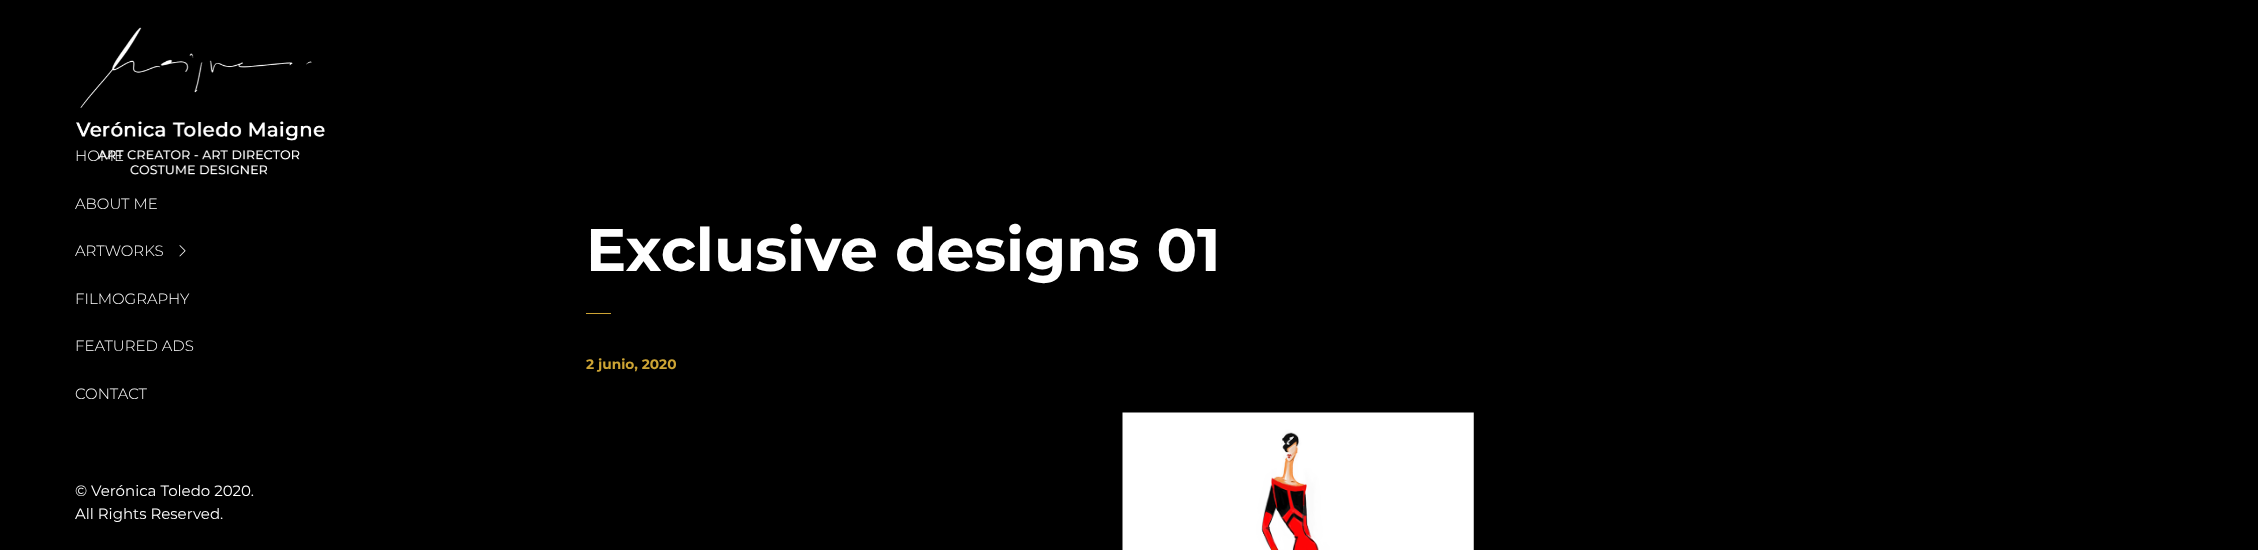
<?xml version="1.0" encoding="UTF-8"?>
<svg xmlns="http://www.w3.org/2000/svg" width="2258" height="550">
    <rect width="100%" height="100%" fill="#000000"/>
    <image x="76" y="27" width="249" height="148" href="img_01.png"/>
    <text x="75" y="161" font-family="Montserrat" font-size="15" font-weight="300" fill="#FFFFFF">HOME</text>
    <text x="75" y="209" font-family="Montserrat" font-size="15" font-weight="300" fill="#FFFFFF">ABOUT ME</text>
    <text x="75" y="256" font-family="Montserrat" font-size="15" font-weight="300" fill="#FFFFFF">ARTWORKS</text>
    <image x="179" y="245" width="7" height="12" href="img_02.png"/>
    <text x="75" y="304" font-family="Montserrat" font-size="15" font-weight="300" fill="#FFFFFF">FILMOGRAPHY</text>
    <text x="75" y="351" font-family="Montserrat" font-size="15" font-weight="300" fill="#FFFFFF">FEATURED ADS</text>
    <text x="75" y="399" font-family="Montserrat" font-size="15" font-weight="300" fill="#FFFFFF">CONTACT</text>
    <text font-family="Montserrat" font-size="15" fill="#FFFFFF">
        <tspan x="75" y="496">© Verónica Toledo 2020.</tspan>
        <tspan x="75" y="519">All Rights Reserved.</tspan>
    </text>
    <text x="586" y="271" font-family="Montserrat" font-size="60" font-weight="700" fill="#FFFFFF">Exclusive designs 01</text>
    <rect x="586" y="313" width="25" height="1" fill="#CDA434"/>
    <text x="586" y="369" font-family="Montserrat" font-size="13.75" font-weight="700" fill="#CDA434">2 junio, 2020</text>
    <image x="1122" y="412" width="352" height="138" href="img_03.png"/>
</svg>
